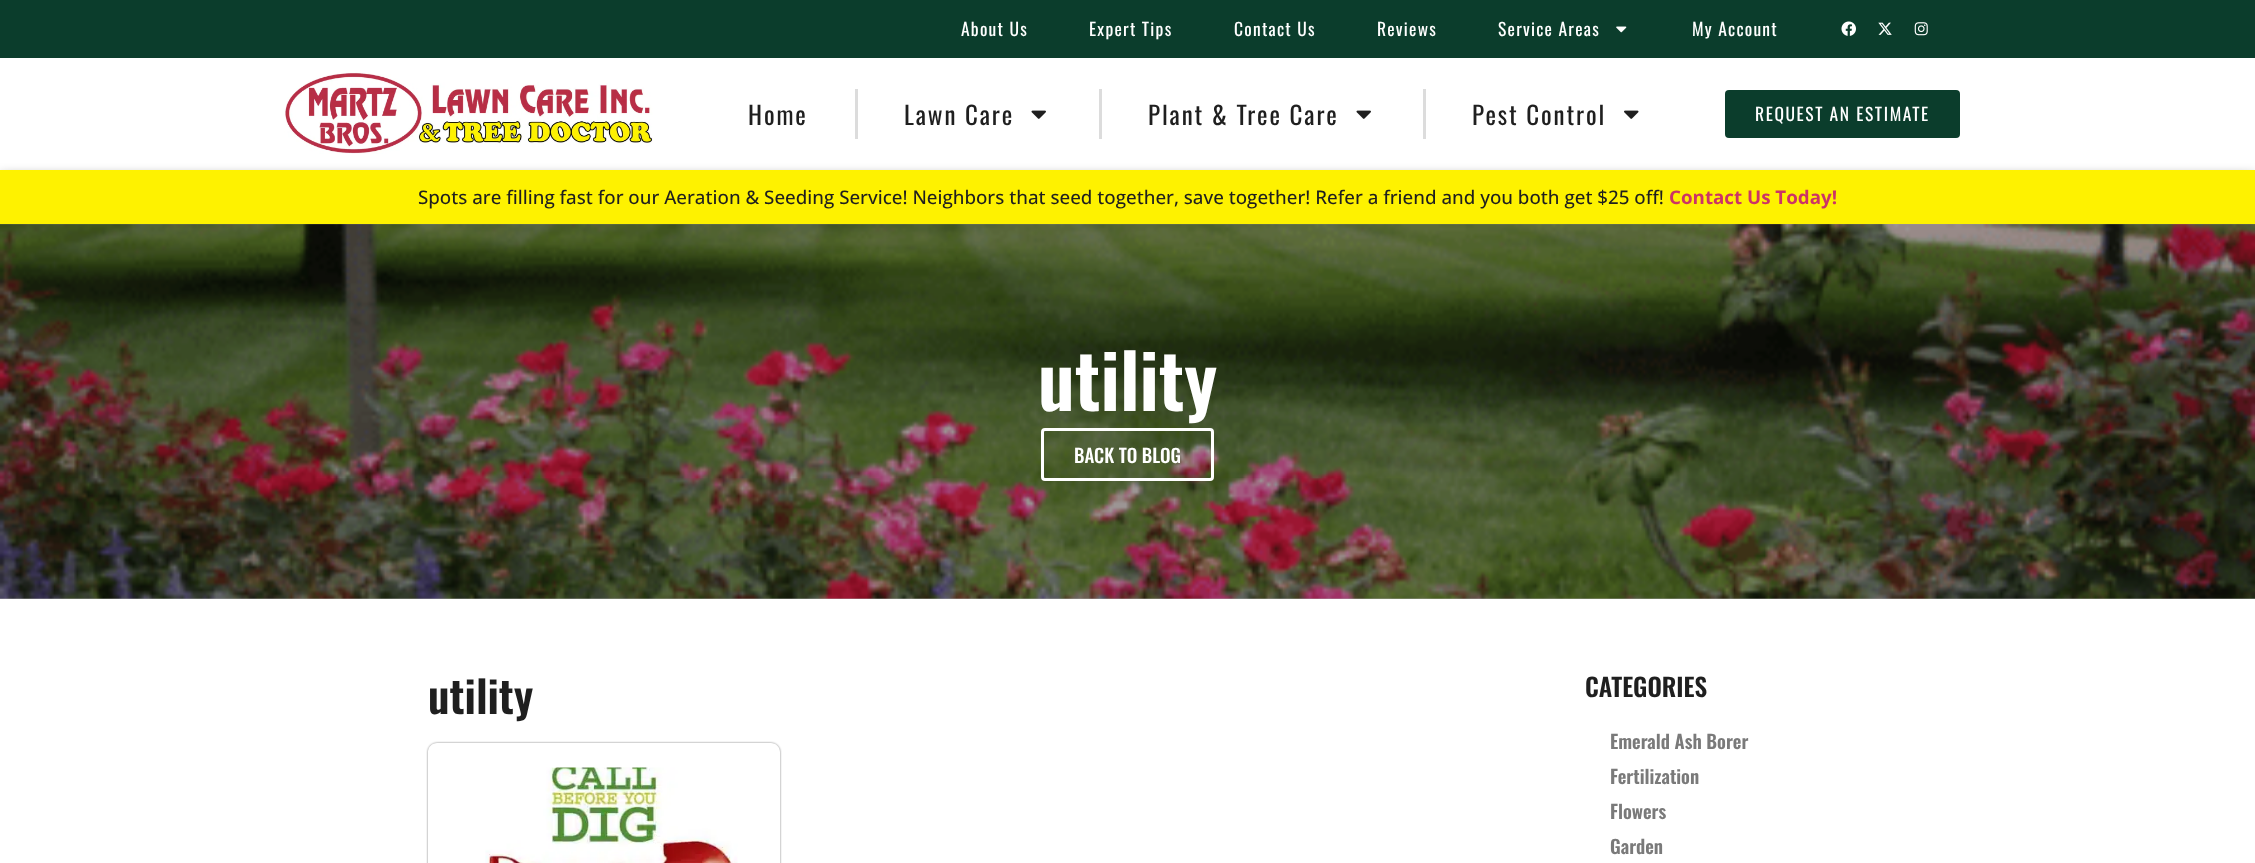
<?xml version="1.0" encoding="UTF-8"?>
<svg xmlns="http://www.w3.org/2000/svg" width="2255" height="863">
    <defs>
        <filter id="blur1" x="-50%" y="-200%" width="200%" height="500%"><feGaussianBlur stdDeviation="6"/></filter>
        <clipPath id="clip1"><path d="M 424 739 H 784 V 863 H 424 Z M 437 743 H 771 C 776 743 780 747 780 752 V 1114 C 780 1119 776 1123 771 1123 H 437 C 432 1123 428 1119 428 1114 V 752 C 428 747 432 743 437 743 Z" clip-rule="evenodd"/></clipPath>
        <filter id="blur2" x="-50%" y="-200%" width="200%" height="500%"><feGaussianBlur stdDeviation="1"/></filter>
    </defs>
    <rect width="100%" height="100%" fill="#FFFFFF"/>
    <rect x="0" y="0" width="2255" height="58" fill="#0B3D2C"/>
    <text x="961" y="36" font-family="Oswald" font-size="17.5" letter-spacing="1.25" fill="#FFFFFF">About Us</text>
    <text x="1089" y="36" font-family="Oswald" font-size="17.5" letter-spacing="1.25" fill="#FFFFFF">Expert Tips</text>
    <text x="1234" y="36" font-family="Oswald" font-size="17.5" letter-spacing="1.25" fill="#FFFFFF">Contact Us</text>
    <text x="1377" y="36" font-family="Oswald" font-size="17.5" letter-spacing="1.25" fill="#FFFFFF">Reviews</text>
    <text x="1498" y="36" font-family="Oswald" font-size="17.5" letter-spacing="1.25" fill="#FFFFFF">Service Areas</text>
    <image x="1616" y="26" width="11" height="7" href="img_01.png"/>
    <text x="1692" y="36" font-family="Oswald" font-size="17.5" letter-spacing="1.25" fill="#FFFFFF">My Account</text>
    <image x="1841" y="21" width="15" height="15" href="img_02.png"/>
    <image x="1878" y="22" width="14" height="13" href="img_03.png"/>
    <image x="1914" y="22" width="14" height="14" href="img_04.png"/>
    <image x="284" y="72" width="369" height="82" href="img_05.png"/>
    <text x="748" y="125" font-family="Oswald" font-size="25" letter-spacing="1.9" fill="#1F1F1F">Home</text>
    <rect x="855" y="89" width="3" height="50" fill="#DCDCDC"/>
    <text x="904" y="125" font-family="Oswald" font-size="25" letter-spacing="1.9" fill="#1F1F1F">Lawn Care</text>
    <image x="1031" y="110" width="15" height="9" href="img_06.png"/>
    <rect x="1099" y="89" width="3" height="50" fill="#DCDCDC"/>
    <text x="1148" y="125" font-family="Oswald" font-size="25" letter-spacing="1.9" fill="#1F1F1F">Plant &amp; Tree Care</text>
    <image x="1356" y="110" width="15" height="9" href="img_06.png"/>
    <rect x="1423" y="89" width="3" height="50" fill="#DCDCDC"/>
    <text x="1472" y="125" font-family="Oswald" font-size="25" letter-spacing="1.9" fill="#1F1F1F">Pest Control</text>
    <image x="1624" y="110" width="15" height="9" href="img_07.png"/>
    <rect x="1725" y="90" width="235" height="48" rx="4" fill="#0B3D2C"/>
    <text x="1755" y="121" font-family="Oswald" font-size="17.5" letter-spacing="1.6" fill="#FFFFFF">REQUEST AN ESTIMATE</text>
    <rect x="0" y="176" width="2255" height="54" fill="#000000" fill-opacity="0.5" filter="url(#blur1)"/>
    <rect x="0" y="170" width="2255" height="54" fill="#FEF200"/>
    <text x="418" y="204" font-family="Open Sans" font-size="18.75" font-weight="500" fill="#1F1F1F">Spots are filling fast for our Aeration &amp; Seeding Service! Neighbors that seed together, save together! Refer a friend and you both get $25 off!</text>
    <text x="1669" y="204" font-family="Open Sans" font-size="18.75" font-weight="700" fill="#CC3366">Contact Us Today!</text>
    <rect x="0" y="224" width="2255" height="18" fill="#FFFFFF"/>
    <image x="0" y="224" width="2255" height="375" href="img_08.png"/>
    <rect x="0" y="224" width="2255" height="375" fill="#000000" fill-opacity="0.35"/>
    <text x="1038" y="411" font-family="Oswald" font-size="75" font-weight="600" fill="#FFFFFF">utility</text>
    <rect x="1042.5" y="429.5" width="170" height="50" rx="2.5" fill="none" stroke="#FFFFFF" stroke-width="3"/>
    <text x="1074" y="463" font-family="Oswald" font-size="18.75" font-weight="500" fill="#FFFFFF">BACK TO BLOG</text>
    <text x="428" y="714" font-family="Oswald" font-size="44" font-weight="600" fill="#1F1F1F">utility</text>
    <g clip-path="url(#clip1)">
        <rect x="428" y="743" width="352" height="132" rx="9" fill="#000000" fill-opacity="0.5" filter="url(#blur2)"/>
    </g>
    <image x="485" y="767" width="253" height="96" href="img_09.png"/>
    <text x="1585" y="697" font-family="Oswald" font-size="25" font-weight="600" fill="#1F1F1F">CATEGORIES</text>
    <text font-family="Oswald" font-size="18.75" font-weight="600" fill="#7A7A7A">
        <tspan x="1610" y="749">Emerald Ash Borer</tspan>
        <tspan x="1610" y="784">Fertilization</tspan>
        <tspan x="1610" y="819">Flowers</tspan>
        <tspan x="1610" y="854">Garden</tspan>
    </text>
</svg>
